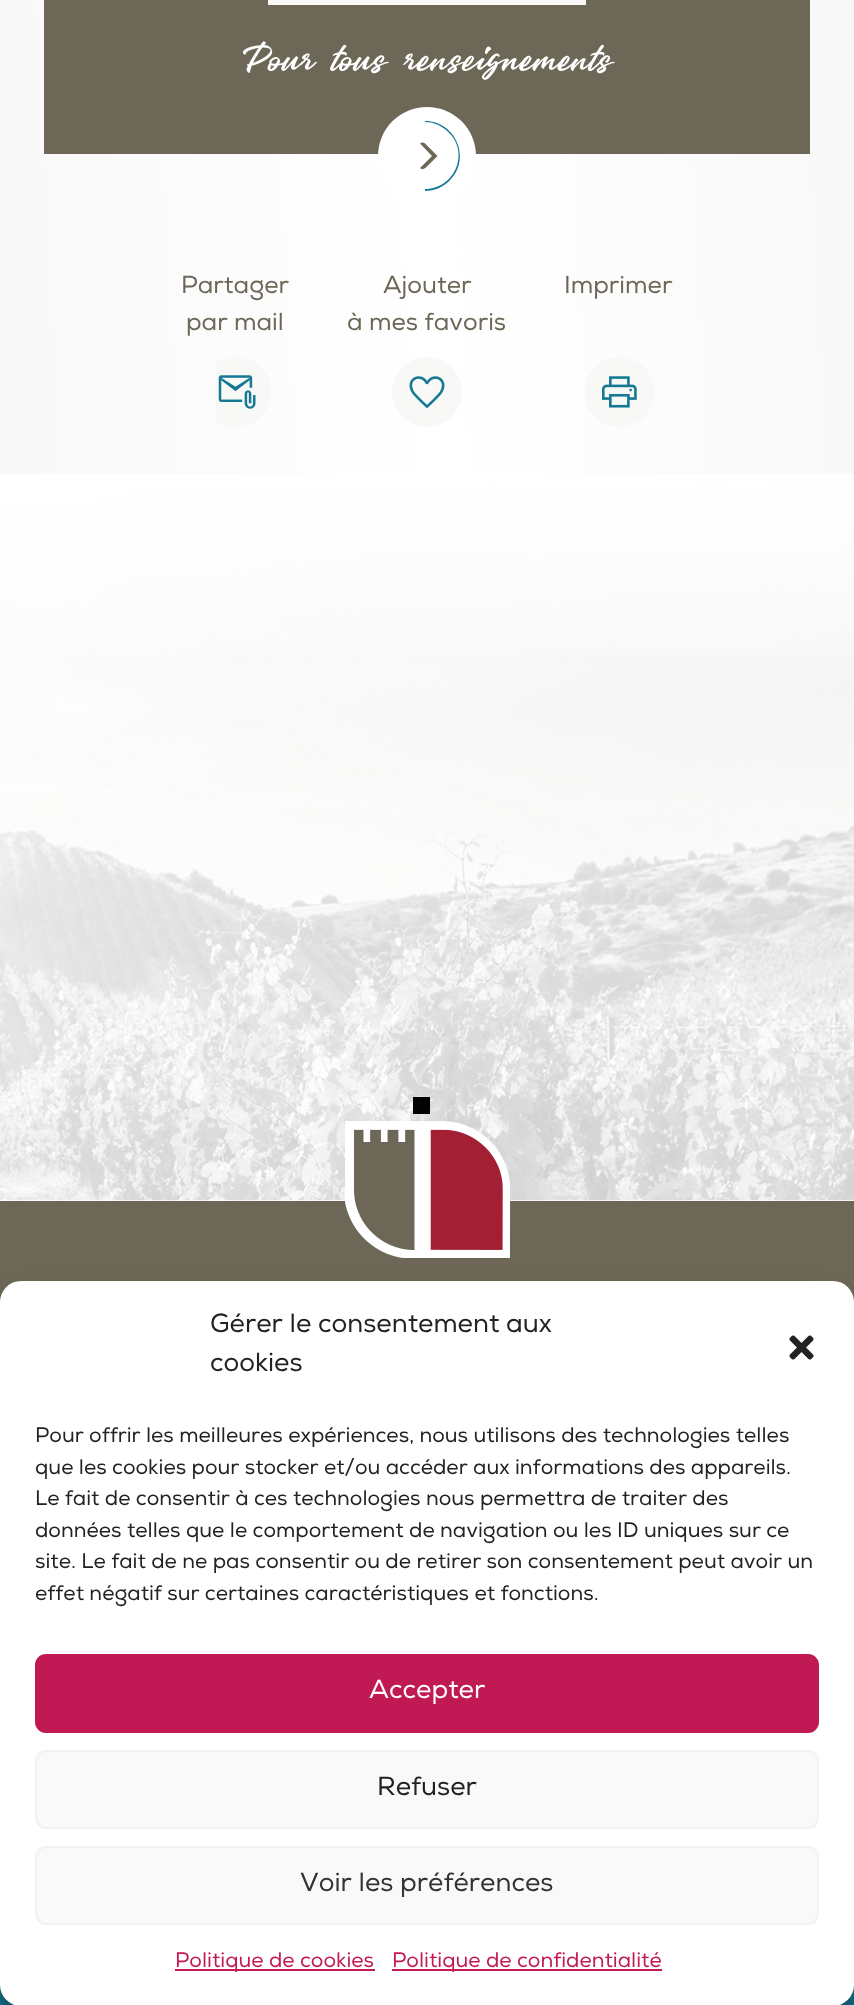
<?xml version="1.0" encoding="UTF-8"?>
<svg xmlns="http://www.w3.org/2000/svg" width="854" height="2005">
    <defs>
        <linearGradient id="g1" gradientUnits="userSpaceOnUse" x1="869" y1="147" x2="-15" y2="193"><stop offset="0" stop-color="#F8F8F8"/><stop offset="0.5" stop-color="#FFFFFF"/><stop offset="1" stop-color="#F8F8F8"/></linearGradient>
        <linearGradient id="g2" gradientUnits="userSpaceOnUse" x1="427" y1="448" x2="427" y2="1201"><stop offset="0" stop-color="#FFFFFF"/><stop offset="0.36" stop-color="#FFFFFF" stop-opacity="0"/></linearGradient>
        <filter id="blur1" x="-50%" y="-200%" width="200%" height="500%"><feGaussianBlur stdDeviation="5"/></filter>
        <filter id="blur2" x="-50%" y="-200%" width="200%" height="500%"><feGaussianBlur stdDeviation="17.5"/></filter>
    </defs>
    <rect width="100%" height="100%" fill="#FFFFFF"/>
    <rect x="0" y="0" width="854" height="474" fill="url(#g1)"/>
    <rect x="44" y="0" width="766" height="154" fill="#6D6757"/>
    <rect x="268" y="0" width="318" height="5" fill="#F8F8F7"/>
    <text x="243" y="71" font-family="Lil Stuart" font-size="35" fill="#FFFFFF">Pour tous renseignements</text>
    <circle cx="427" cy="156" r="49" fill="#FFFFFF"/>
    <path d="M 425 143.5 L 437.5 156 L 429.5 164 C 427 166 423.5 171.5 420 168 L 432 156 L 420 143.5 C 421.5 142 424 142 425 143.5 Z" fill="#6D6757"/>
    <path d="M 425 191 C 433 191 441 188 447 183 C 473 162 457 121 425 121 V 122 C 433 122 440 125 446 130 C 471 150 456 189 425 189 Z" fill="#167994"/>
    <text x="181" y="293" font-family="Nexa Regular" font-size="24.5" fill="#6D6757">Partager</text>
    <text x="186" y="330" font-family="Nexa Regular" font-size="24.5" fill="#6D6757">par mail</text>
    <image x="216" y="357" width="55" height="70" href="img_01.png"/>
    <text x="383" y="293" font-family="Nexa Regular" font-size="24.5" fill="#6D6757">Ajouter</text>
    <text x="347" y="330" font-family="Nexa Regular" font-size="24.5" fill="#6D6757">à mes favoris</text>
    <image x="392" y="357" width="70" height="70" href="img_02.png"/>
    <text x="564" y="293" font-family="Nexa Regular" font-size="24.5" fill="#6D6757">Imprimer</text>
    <image x="585" y="357" width="69" height="70" href="img_03.png"/>
    <image x="0" y="479" width="854" height="722" href="img_04.png"/>
    <rect x="0" y="479" width="854" height="176" fill="url(#g2)"/>
    <rect x="0" y="1201" width="854" height="101" fill="#6D6757"/>
    <image x="345" y="1097" width="166" height="161" href="img_05.png"/>
    <rect x="0" y="1985" width="854" height="20" fill="#167994"/>
    <rect x="0" y="1292" width="854" height="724" rx="21" fill="#000000" fill-opacity="0.23" filter="url(#blur1)"/>
    <rect x="0" y="1299" width="854" height="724" rx="21" fill="#000000" fill-opacity="0.19" filter="url(#blur2)"/>
    <rect x="0" y="1281" width="854" height="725" rx="21" fill="#FFFFFF"/>
    <text font-family="Nexa Regular" font-size="26.25" fill="#222222">
        <tspan x="210" y="1332">Gérer le consentement aux</tspan>
        <tspan x="210" y="1371">cookies</tspan>
    </text>
    <image x="789" y="1335" width="25" height="25" href="img_06.png"/>
    <text font-family="Nexa Regular" font-size="21" fill="#222222">
        <tspan x="35" y="1442">Pour offrir les meilleures expériences, nous utilisons des technologies telles</tspan>
        <tspan x="35" y="1474">que les cookies pour stocker et/ou accéder aux informations des appareils.</tspan>
        <tspan x="35" y="1505">Le fait de consentir à ces technologies nous permettra de traiter des</tspan>
        <tspan x="35" y="1537">données telles que le comportement de navigation ou les ID uniques sur ce</tspan>
        <tspan x="35" y="1568">site. Le fait de ne pas consentir ou de retirer son consentement peut avoir un</tspan>
        <tspan x="35" y="1600">effet négatif sur certaines caractéristiques et fonctions.</tspan>
    </text>
    <rect x="36" y="1655" width="782" height="77" rx="10" fill="#C01953" stroke="#C01953" stroke-width="2"/>
    <text x="369" y="1698" font-family="Nexa Regular" font-size="26.25" fill="#FFFFFF">Accepter</text>
    <rect x="36" y="1751" width="782" height="77" rx="10" fill="#F9F9F9" stroke="#F2F2F2" stroke-width="2"/>
    <text x="377" y="1795" font-family="Nexa Regular" font-size="26.25" fill="#222222">Refuser</text>
    <rect x="36" y="1847" width="782" height="77" rx="10" fill="#F9F9F9" stroke="#F2F2F2" stroke-width="2"/>
    <text x="300" y="1891" font-family="Nexa Regular" font-size="26.25" fill="#333333">Voir les préférences</text>
    <rect x="175" y="1969" width="200" height="2" fill="#C01953"/>
    <text x="175" y="1967" font-family="Nexa Regular" font-size="21" fill="#C01953">Politique de cookies</text>
    <rect x="392" y="1969" width="270" height="2" fill="#C01953"/>
    <text x="392" y="1967" font-family="Nexa Regular" font-size="21" fill="#C01953">Politique de confidentialité</text>
</svg>
